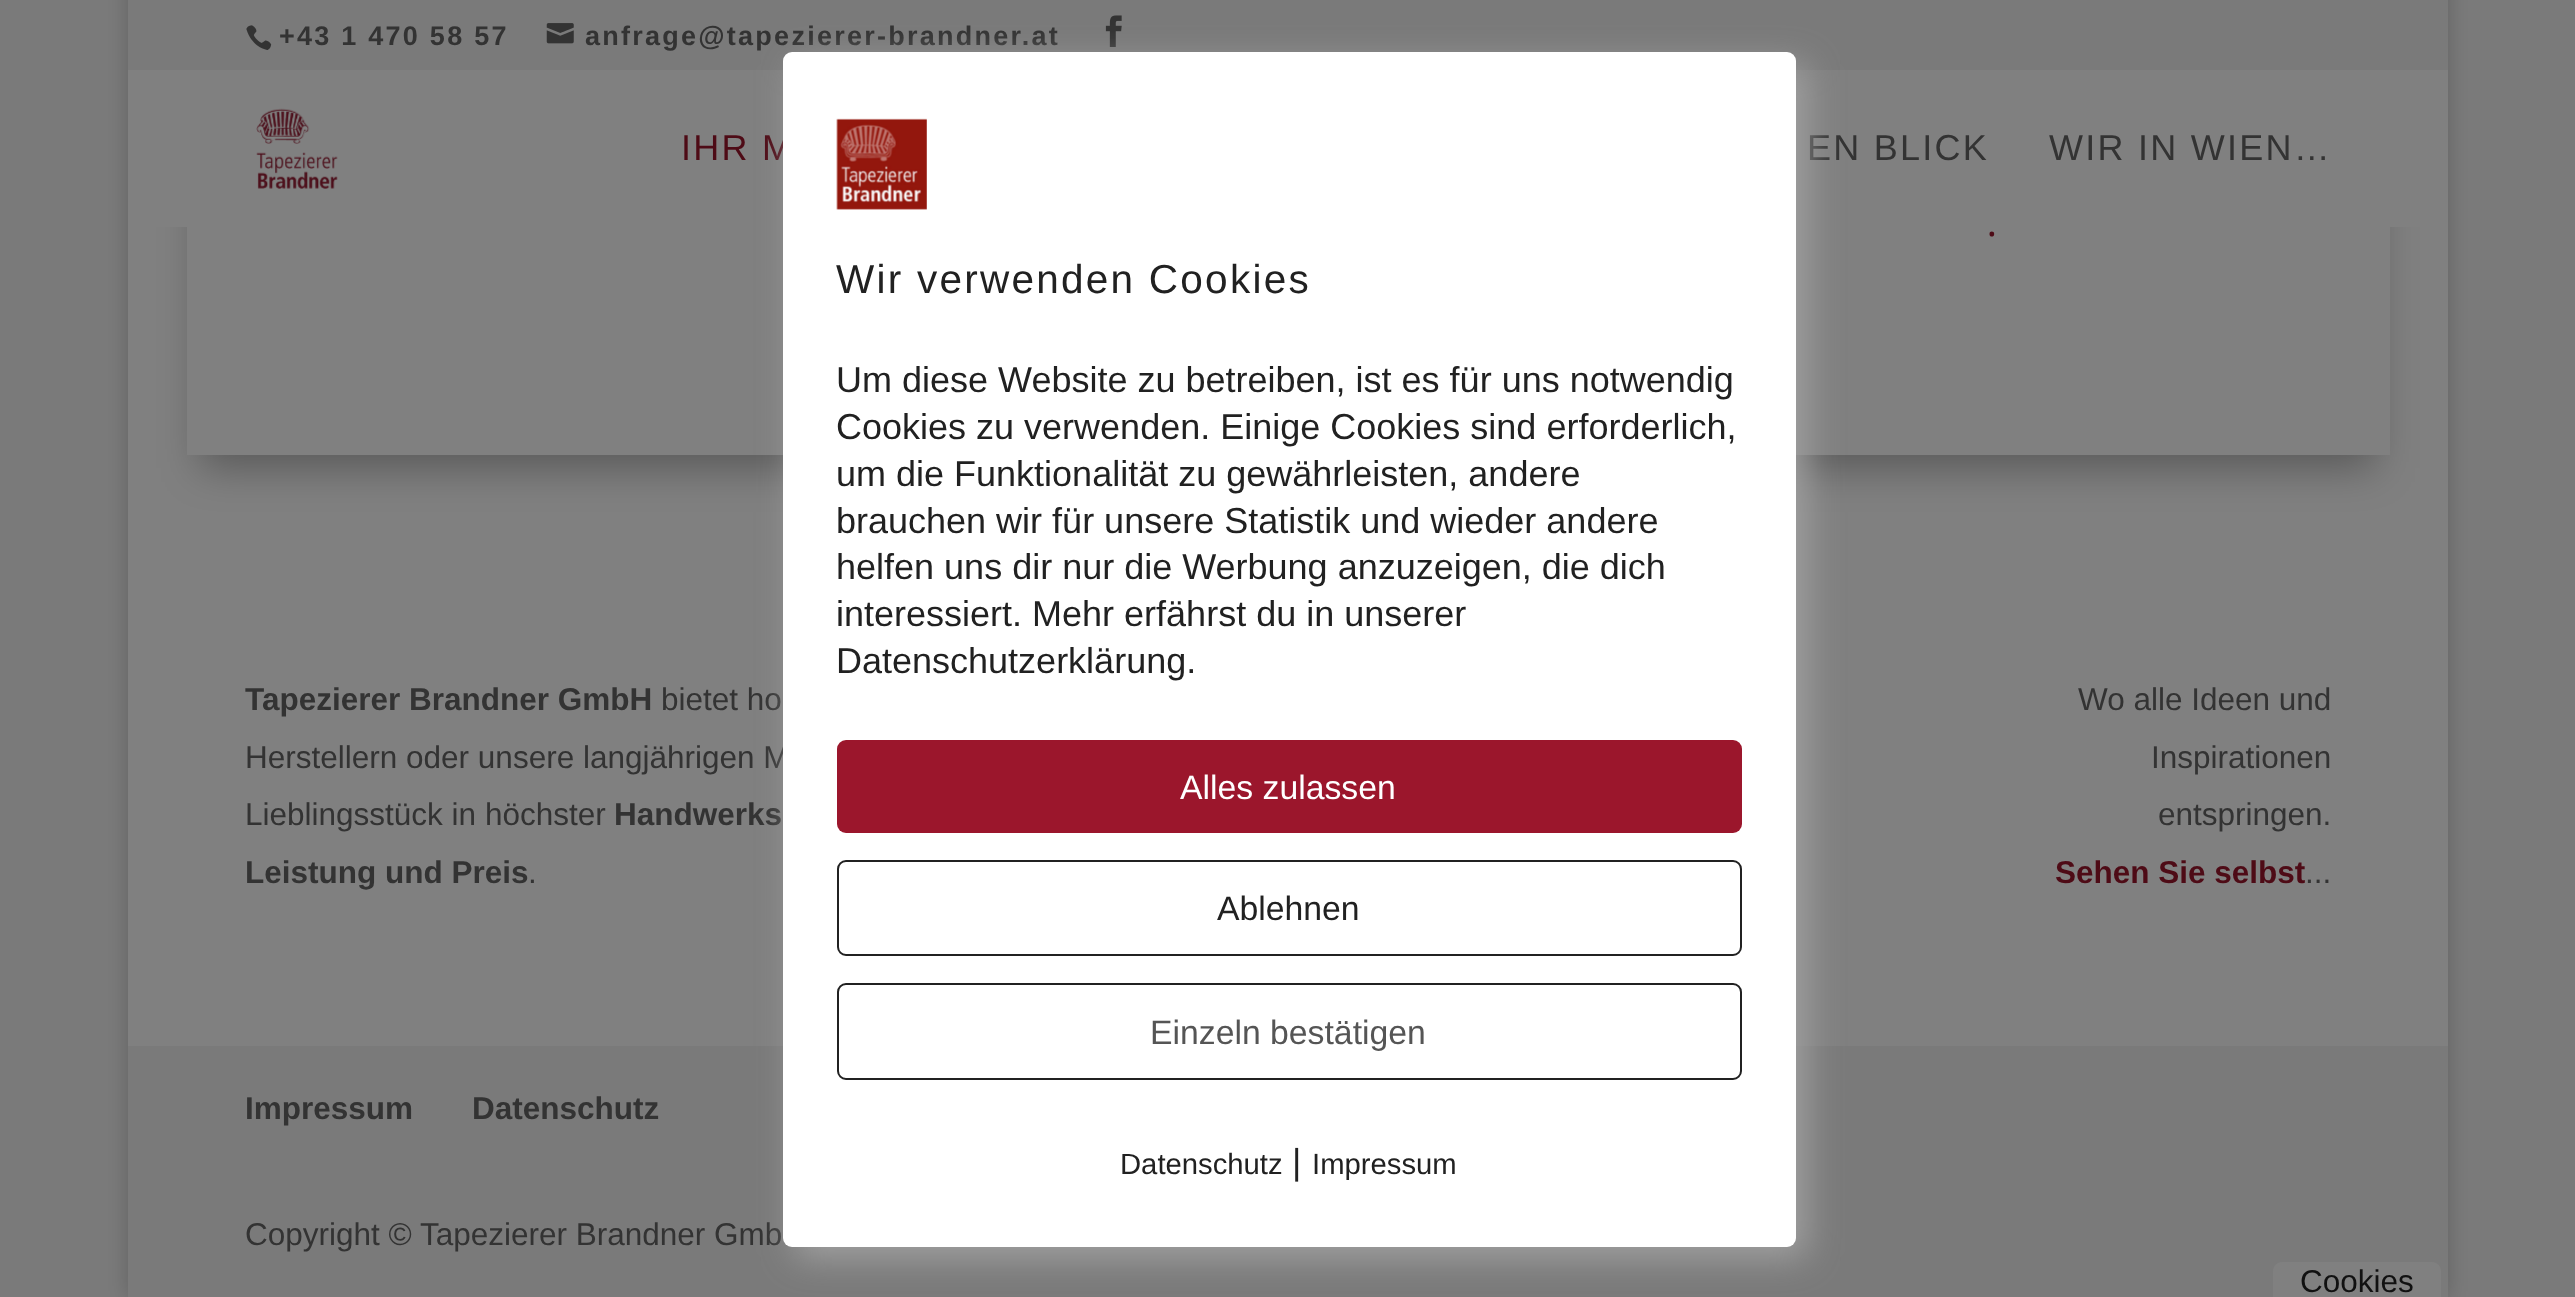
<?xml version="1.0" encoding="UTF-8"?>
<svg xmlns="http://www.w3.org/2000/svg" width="2575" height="1297">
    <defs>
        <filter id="blur1" x="-50%" y="-200%" width="200%" height="500%"><feGaussianBlur stdDeviation="11"/></filter>
        <clipPath id="clip1"><path d="M 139 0 H 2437 V 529 H 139 Z M 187 -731 H 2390 V 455 H 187 Z" clip-rule="evenodd"/></clipPath>
        <filter id="blur2" x="-50%" y="-200%" width="200%" height="500%"><feGaussianBlur stdDeviation="20"/></filter>
        <filter id="blur3" x="-50%" y="-200%" width="200%" height="500%"><feGaussianBlur stdDeviation="17"/></filter>
    </defs>
    <rect width="100%" height="100%" fill="#7A7A7A"/>
    <rect x="128" y="-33" width="2320" height="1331" fill="#000000" fill-opacity="0.2" filter="url(#blur1)"/>
    <rect x="128" y="227" width="2320" height="819" fill="#808080"/>
    <g clip-path="url(#clip1)">
        <rect x="200" y="-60" width="2176" height="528" fill="#000000" fill-opacity="0.3" filter="url(#blur2)"/>
    </g>
    <rect x="128" y="0" width="2320" height="70" fill="#7A7A7A"/>
    <image x="246" y="25" width="26" height="25" href="img_01.png"/>
    <text x="279" y="45" font-family="Liberation Sans" font-size="27" font-weight="700" letter-spacing="2.25" fill="#333333">+43 1 470 58 57</text>
    <image x="546" y="23" width="28" height="21" href="img_02.png"/>
    <text x="585" y="45" font-family="Liberation Sans" font-size="27" font-weight="700" letter-spacing="2.25" fill="#333333">anfrage@tapezierer-brandner.at</text>
    <image x="1105" y="15" width="17" height="32" href="img_03.png"/>
    <rect x="128" y="70" width="2320" height="157" fill="#808080"/>
    <image x="256" y="108" width="82" height="81" href="img_04.png"/>
    <text x="681" y="160" font-family="Liberation Sans" font-size="36" letter-spacing="2.25" fill="#4E0B16">IHR M</text>
    <text x="1807" y="160" font-family="Liberation Sans" font-size="36" letter-spacing="2.25" fill="#333333">EN BLICK</text>
    <text x="2049" y="160" font-family="Liberation Sans" font-size="36" letter-spacing="2.25" fill="#333333">WIR IN WIEN…</text>
    <text x="1987" y="236" font-family="Open Sans" font-size="36" font-weight="500" fill="#4E0B16">.</text>
    <text x="245" y="710" font-family="Liberation Sans" font-size="31.5" font-weight="700" fill="#333333">Tapezierer Brandner GmbH</text>
    <text x="661" y="710" font-family="Liberation Sans" font-size="31.5" fill="#333333">bietet ho</text>
    <text font-family="Liberation Sans" font-size="31.5" fill="#333333">
        <tspan x="245" y="768">Herstellern oder unsere langjährigen M</tspan>
        <tspan x="245" y="825">Lieblingsstück in höchster</tspan>
    </text>
    <text x="614" y="825" font-family="Liberation Sans" font-size="31.5" font-weight="700" fill="#333333">Handwerks</text>
    <text x="245" y="883" font-family="Liberation Sans" font-size="31.5" font-weight="700" fill="#333333">Leistung und Preis</text>
    <text x="528" y="883" font-family="Liberation Sans" font-size="31.5" fill="#333333">.</text>
    <text x="2078" y="710" font-family="Liberation Sans" font-size="31.5" fill="#333333">Wo alle Ideen und</text>
    <text x="2151" y="768" font-family="Liberation Sans" font-size="31.5" fill="#333333">Inspirationen</text>
    <text x="2158" y="825" font-family="Liberation Sans" font-size="31.5" fill="#333333">entspringen.</text>
    <text x="2055" y="883" font-family="Liberation Sans" font-size="31.5" font-weight="700" fill="#4E0B16">Sehen Sie selbst</text>
    <text x="2305" y="883" font-family="Liberation Sans" font-size="31.5" fill="#333333">...</text>
    <rect x="128" y="1046" width="2320" height="251" fill="#7A7A7A"/>
    <text x="245" y="1119" font-family="Liberation Sans" font-size="31.5" font-weight="700" fill="#333333">Impressum</text>
    <text x="472" y="1119" font-family="Liberation Sans" font-size="31.5" font-weight="700" fill="#333333">Datenschutz</text>
    <text x="245" y="1245" font-family="Liberation Sans" font-size="31.5" fill="#333333">Copyright © Tapezierer Brandner Gmb</text>
    <rect x="794" y="63" width="1013" height="1195" rx="9" fill="#A0A0A0" filter="url(#blur3)"/>
    <rect x="783" y="52" width="1013" height="1195" rx="9" fill="#FFFFFF"/>
    <image x="836" y="118" width="91" height="92" href="img_05.png"/>
    <text x="836" y="293" font-family="Liberation Sans" font-size="40.5" letter-spacing="2.25" fill="#212121">Wir verwenden Cookies</text>
    <text font-family="Liberation Sans" font-size="36" fill="#212121">
        <tspan x="836" y="392">Um diese Website zu betreiben, ist es für uns notwendig</tspan>
        <tspan x="836" y="439">Cookies zu verwenden. Einige Cookies sind erforderlich,</tspan>
        <tspan x="836" y="486">um die Funktionalität zu gewährleisten, andere</tspan>
        <tspan x="836" y="533">brauchen wir für unsere Statistik und wieder andere</tspan>
        <tspan x="836" y="579">helfen uns dir nur die Werbung anzuzeigen, die dich</tspan>
        <tspan x="836" y="626">interessiert. Mehr erfährst du in unserer</tspan>
        <tspan x="836" y="673">Datenschutzerklärung.</tspan>
    </text>
    <rect x="837" y="740" width="905" height="93" rx="9" fill="#9B162C"/>
    <text x="1180" y="799" font-family="Liberation Sans" font-size="33.75" fill="#FFFFFF">Alles zulassen</text>
    <rect x="838" y="861" width="903" height="94" rx="8" fill="none" stroke="#212121" stroke-width="2"/>
    <text x="1217" y="920" font-family="Liberation Sans" font-size="33.75" fill="#212121">Ablehnen</text>
    <rect x="838" y="984" width="903" height="95" rx="8" fill="none" stroke="#212121" stroke-width="2"/>
    <text x="1150" y="1044" font-family="Liberation Sans" font-size="33.75" fill="#555555">Einzeln bestätigen</text>
    <text x="1120" y="1174" font-family="Liberation Sans" font-size="29.25" fill="#212121">Datenschutz</text>
    <text x="1292" y="1174" font-family="Liberation Sans" font-size="36" fill="#212121">|</text>
    <text x="1312" y="1174" font-family="Liberation Sans" font-size="29.25" fill="#212121">Impressum</text>
    <path d="M 2282 1262 H 2432 C 2437 1262 2441 1266 2441 1271 V 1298 H 2273 V 1271 C 2273 1266 2277 1262 2282 1262 Z" fill="#808080"/>
    <text x="2300" y="1292" font-family="Liberation Sans" font-size="31.5" fill="#111111">Cookies</text>
</svg>
